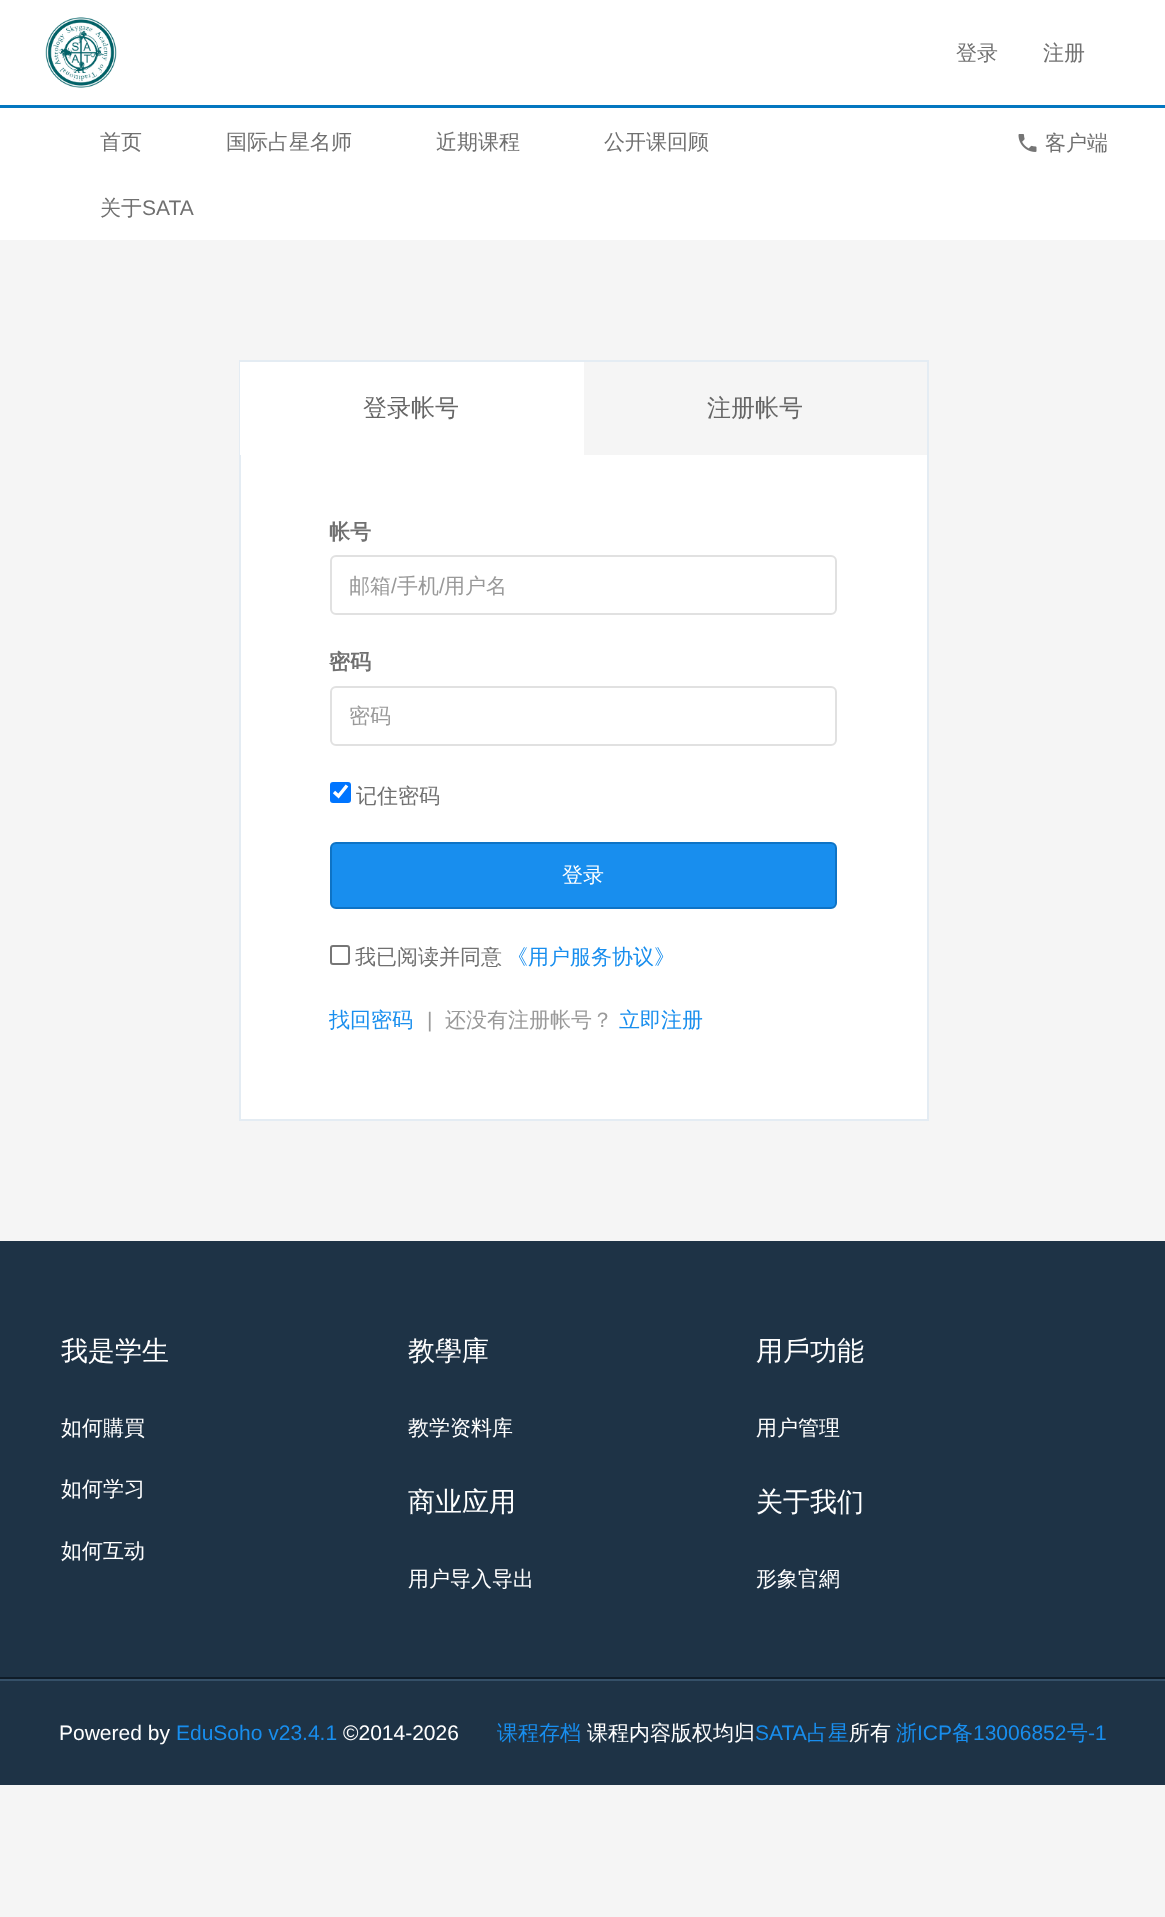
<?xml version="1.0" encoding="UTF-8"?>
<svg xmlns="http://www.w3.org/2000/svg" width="1165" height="1917">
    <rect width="100%" height="100%" fill="#F5F5F5"/>
    <rect x="0" y="0" width="1165" height="105" fill="#FFFFFF"/>
    <image x="45" y="17" width="72" height="71" href="img_01.png"/>
    <text x="956" y="60" font-family="WenQuanYi Zen Hei" font-size="21" font-weight="500" fill="#707070">登录</text>
    <text x="1043" y="60" font-family="WenQuanYi Zen Hei" font-size="21" font-weight="500" fill="#707070">注册</text>
    <rect x="0" y="105" width="1165" height="3" fill="#0477C0"/>
    <rect x="0" y="108" width="1165" height="132" fill="#FFFFFF"/>
    <text x="100" y="149" font-family="WenQuanYi Zen Hei" font-size="21" font-weight="500" fill="#707070">首页</text>
    <text x="226" y="149" font-family="WenQuanYi Zen Hei" font-size="21" font-weight="500" fill="#707070">国际占星名师</text>
    <text x="436" y="149" font-family="WenQuanYi Zen Hei" font-size="21" font-weight="500" fill="#707070">近期课程</text>
    <text x="604" y="149" font-family="WenQuanYi Zen Hei" font-size="21" font-weight="500" fill="#707070">公开课回顾</text>
    <text x="100" y="215" font-family="WenQuanYi Zen Hei" font-size="21" font-weight="500" fill="#707070">关于</text>
    <text x="142" y="215" font-family="Liberation Sans" font-size="21" fill="#707070">SATA</text>
    <image x="1018" y="134" width="19" height="18" href="img_02.png"/>
    <text x="1045" y="150" font-family="WenQuanYi Zen Hei" font-size="21" font-weight="500" fill="#707070">客户端</text>
    <rect x="241" y="455" width="686" height="664" fill="#FFFFFF"/>
    <rect x="240" y="361" width="688" height="759" fill="none" stroke="#E4ECF3" stroke-width="2"/>
    <rect x="240" y="362" width="344" height="93" fill="#FFFFFF"/>
    <text x="363" y="416" font-family="WenQuanYi Zen Hei" font-size="24" font-weight="500" fill="#666666">登录帐号</text>
    <text x="707" y="416" font-family="WenQuanYi Zen Hei" font-size="24" font-weight="500" fill="#666666">注册帐号</text>
    <text x="329" y="539" font-family="WenQuanYi Zen Hei" font-size="21" font-weight="700" fill="#707070">帐号</text>
    <rect x="331" y="556" width="505" height="58" rx="5" fill="none" stroke="#E1E1E1" stroke-width="2"/>
    <text x="349" y="593" font-family="WenQuanYi Zen Hei" font-size="21" font-weight="500" fill="#999999">邮箱</text>
    <text x="391" y="593" font-family="Liberation Sans" font-size="21" fill="#999999">/</text>
    <text x="397" y="593" font-family="WenQuanYi Zen Hei" font-size="21" font-weight="500" fill="#999999">手机</text>
    <text x="439" y="593" font-family="Liberation Sans" font-size="21" fill="#999999">/</text>
    <text x="444" y="593" font-family="WenQuanYi Zen Hei" font-size="21" font-weight="500" fill="#999999">用户名</text>
    <text x="329" y="669" font-family="WenQuanYi Zen Hei" font-size="21" font-weight="700" fill="#707070">密码</text>
    <rect x="331" y="687" width="505" height="58" rx="5" fill="none" stroke="#E1E1E1" stroke-width="2"/>
    <text x="349" y="723" font-family="WenQuanYi Zen Hei" font-size="21" font-weight="500" fill="#999999">密码</text>
    <rect x="330" y="782" width="21" height="21" rx="3" fill="#0075FF"/>
    <path d="M 334 792 L 338.5 796 L 347 785.5" fill="none" stroke="#FFFFFF" stroke-width="3.4"/>
    <text x="356" y="803" font-family="WenQuanYi Zen Hei" font-size="21" font-weight="500" fill="#707070">记住密码</text>
    <rect x="331" y="843" width="505" height="65" rx="5" fill="#188EEE" stroke="#0E73C5" stroke-width="2"/>
    <text x="562" y="882" font-family="WenQuanYi Zen Hei" font-size="21" font-weight="500" fill="#FFFFFF">登录</text>
    <rect x="331" y="946" width="18" height="18" rx="2" fill="none" stroke="#767676" stroke-width="2"/>
    <text x="355" y="964" font-family="WenQuanYi Zen Hei" font-size="21" font-weight="500" fill="#707070">我已阅读并同意</text>
    <text x="507" y="964" font-family="WenQuanYi Zen Hei" font-size="21" font-weight="500" fill="#188EEE">《用户服务协议》</text>
    <text x="329" y="1027" font-family="WenQuanYi Zen Hei" font-size="21" font-weight="500" fill="#188EEE">找回密码</text>
    <text x="427" y="1027" font-family="Liberation Sans" font-size="21" fill="#999999">|</text>
    <text x="445" y="1027" font-family="WenQuanYi Zen Hei" font-size="21" font-weight="500" fill="#999999">还没有注册帐号？</text>
    <text x="619" y="1027" font-family="WenQuanYi Zen Hei" font-size="21" font-weight="500" fill="#188EEE">立即注册</text>
    <rect x="0" y="1241" width="1165" height="436" fill="#1E3346"/>
    <text x="61" y="1360" font-family="WenQuanYi Zen Hei" font-size="27" font-weight="500" fill="#FFFFFF">我是学生</text>
    <text x="61" y="1435" font-family="WenQuanYi Zen Hei" font-size="21" font-weight="500" fill="#FFFFFF">如何購買</text>
    <text x="61" y="1496" font-family="WenQuanYi Zen Hei" font-size="21" font-weight="500" fill="#FFFFFF">如何学习</text>
    <text x="61" y="1558" font-family="WenQuanYi Zen Hei" font-size="21" font-weight="500" fill="#FFFFFF">如何互动</text>
    <text x="408" y="1360" font-family="WenQuanYi Zen Hei" font-size="27" font-weight="500" fill="#FFFFFF">教學庫</text>
    <text x="408" y="1435" font-family="WenQuanYi Zen Hei" font-size="21" font-weight="500" fill="#FFFFFF">教学资料库</text>
    <text x="756" y="1360" font-family="WenQuanYi Zen Hei" font-size="27" font-weight="500" fill="#FFFFFF">用戶功能</text>
    <text x="756" y="1435" font-family="WenQuanYi Zen Hei" font-size="21" font-weight="500" fill="#FFFFFF">用户管理</text>
    <text x="408" y="1511" font-family="WenQuanYi Zen Hei" font-size="27" font-weight="500" fill="#FFFFFF">商业应用</text>
    <text x="408" y="1586" font-family="WenQuanYi Zen Hei" font-size="21" font-weight="500" fill="#FFFFFF">用户导入导出</text>
    <text x="756" y="1511" font-family="WenQuanYi Zen Hei" font-size="27" font-weight="500" fill="#FFFFFF">关于我们</text>
    <text x="756" y="1586" font-family="WenQuanYi Zen Hei" font-size="21" font-weight="500" fill="#FFFFFF">形象官網</text>
    <rect x="0" y="1681" width="1165" height="104" fill="#1E3346"/>
    <rect x="0" y="1677" width="1165" height="2" fill="#0F1C28"/>
    <rect x="0" y="1679" width="1165" height="2" fill="#355068"/>
    <text x="59" y="1740" font-family="Liberation Sans" font-size="21" fill="#FFFFFF">Powered by</text>
    <text x="176" y="1740" font-family="Liberation Sans" font-size="21" fill="#188EEE">EduSoho v23.4.1</text>
    <text x="343" y="1740" font-family="Liberation Sans" font-size="21" fill="#FFFFFF">©2014-2026</text>
    <text x="497" y="1740" font-family="WenQuanYi Zen Hei" font-size="21" font-weight="500" fill="#188EEE">课程存档</text>
    <text x="587" y="1740" font-family="WenQuanYi Zen Hei" font-size="21" font-weight="500" fill="#FFFFFF">课程内容版权均归</text>
    <text x="755" y="1740" font-family="Liberation Sans" font-size="21" fill="#188EEE">SATA</text>
    <text x="807" y="1740" font-family="WenQuanYi Zen Hei" font-size="21" font-weight="500" fill="#188EEE">占星</text>
    <text x="849" y="1740" font-family="WenQuanYi Zen Hei" font-size="21" font-weight="500" fill="#FFFFFF">所有</text>
    <text x="896" y="1740" font-family="WenQuanYi Zen Hei" font-size="21" font-weight="500" fill="#188EEE">浙</text>
    <text x="917" y="1740" font-family="Liberation Sans" font-size="21" fill="#188EEE">ICP</text>
    <text x="952" y="1740" font-family="WenQuanYi Zen Hei" font-size="21" font-weight="500" fill="#188EEE">备</text>
    <text x="973" y="1740" font-family="Liberation Sans" font-size="21" fill="#188EEE">13006852</text>
    <text x="1067" y="1740" font-family="WenQuanYi Zen Hei" font-size="21" font-weight="500" fill="#188EEE">号</text>
    <text x="1088" y="1740" font-family="Liberation Sans" font-size="21" fill="#188EEE">-1</text>
</svg>
